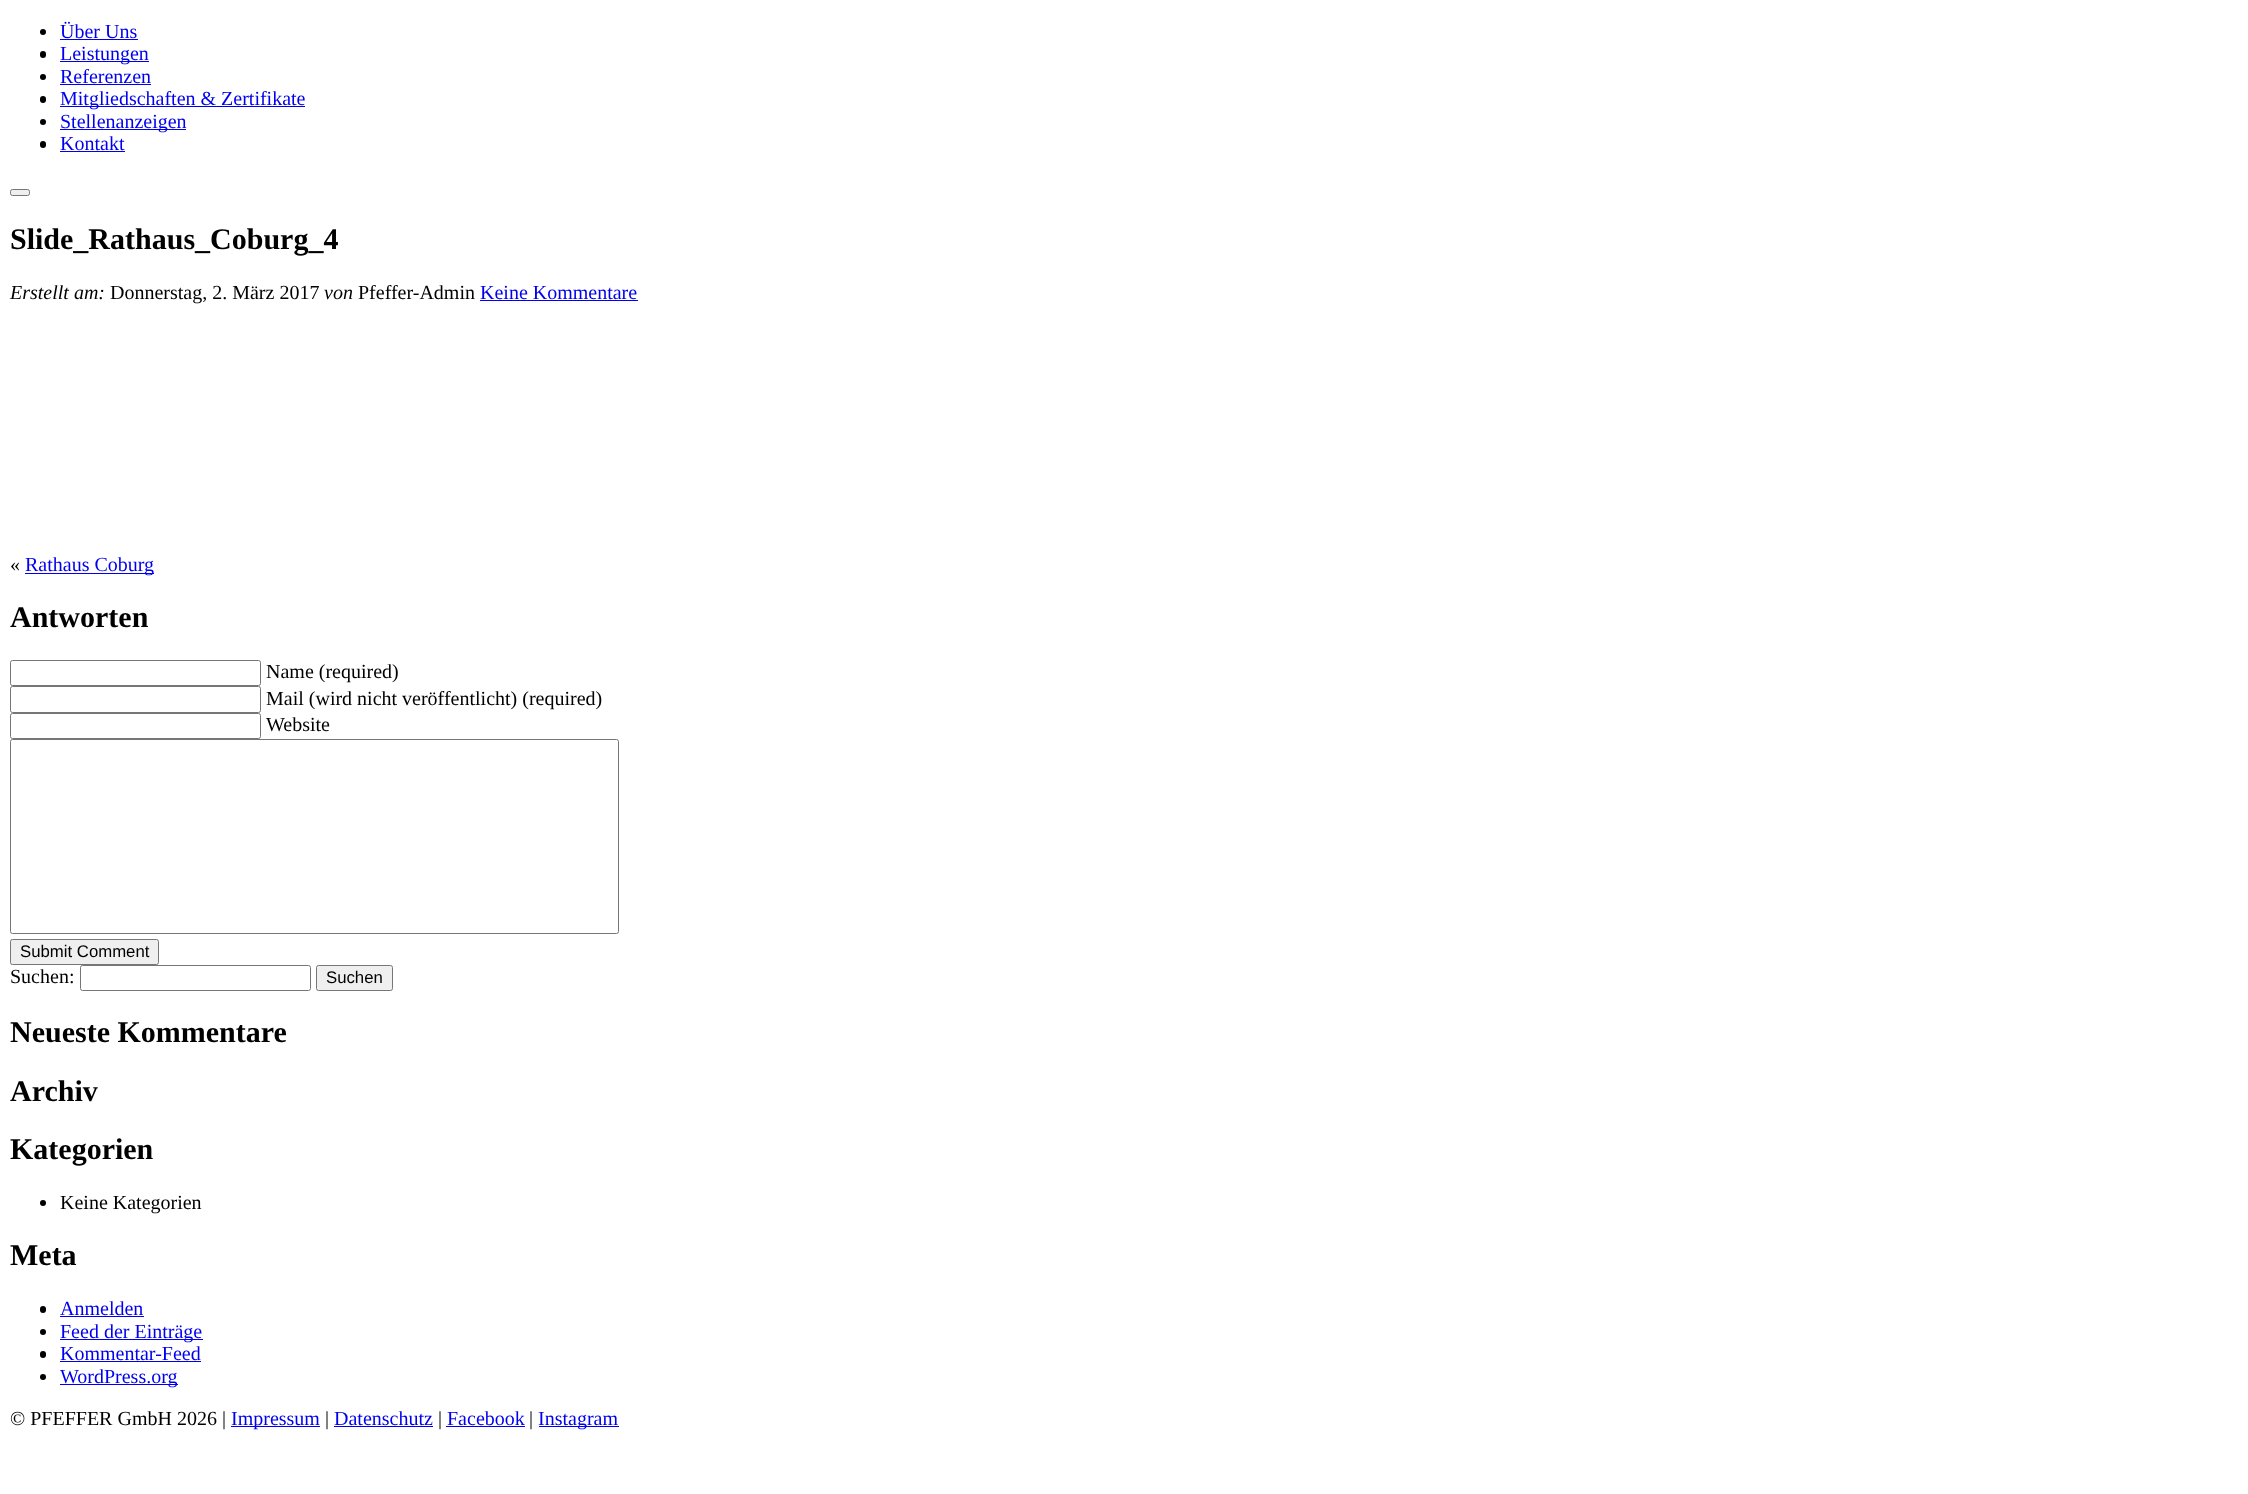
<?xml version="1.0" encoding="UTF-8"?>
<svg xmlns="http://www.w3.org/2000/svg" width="2248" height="1494">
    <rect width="100%" height="100%" fill="#FFFFFF"/>
    <circle cx="43" cy="32" r="3" fill="#000000"/>
    <text x="60" y="38" font-family="Liberation Serif" font-size="20" fill="#0000EE">Über Uns</text>
    <rect x="60" y="39" width="78" height="1" fill="#0000EE"/>
    <rect x="40" y="51" width="6" height="7" rx="3" fill="#000000"/>
    <rect x="60" y="61" width="89" height="1" fill="#0000EE"/>
    <text x="60" y="60" font-family="Liberation Serif" font-size="20" fill="#0000EE">Leistungen</text>
    <circle cx="43" cy="77" r="3" fill="#000000"/>
    <text x="60" y="83" font-family="Liberation Serif" font-size="20" fill="#0000EE">Referenzen</text>
    <rect x="60" y="84" width="91" height="1" fill="#0000EE"/>
    <rect x="40" y="96" width="6" height="7" rx="3" fill="#000000"/>
    <rect x="60" y="106" width="245" height="1" fill="#0000EE"/>
    <text x="60" y="105" font-family="Liberation Serif" font-size="20" fill="#0000EE">Mitgliedschaften &amp; Zertifikate</text>
    <circle cx="43" cy="122" r="3" fill="#000000"/>
    <rect x="60" y="129" width="126" height="1" fill="#0000EE"/>
    <text x="60" y="128" font-family="Liberation Serif" font-size="20" fill="#0000EE">Stellenanzeigen</text>
    <rect x="40" y="141" width="6" height="7" rx="3" fill="#000000"/>
    <text x="60" y="150" font-family="Liberation Serif" font-size="20" fill="#0000EE">Kontakt</text>
    <rect x="60" y="151" width="65" height="1" fill="#0000EE"/>
    <rect x="10.5" y="189.5" width="19" height="6" rx="2" fill="#EFEFEF" stroke="#767676"/>
    <text x="10" y="249" font-family="Liberation Serif" font-size="30" font-weight="700" fill="#000000">Slide_Rathaus_Coburg_4</text>
    <text x="10" y="299" font-family="Liberation Serif" font-size="20" font-style="italic" fill="#000000">Erstellt am:</text>
    <text x="110" y="299" font-family="Liberation Serif" font-size="20" fill="#000000">Donnerstag, 2. März 2017</text>
    <text x="324" y="299" font-family="Liberation Serif" font-size="20" font-style="italic" fill="#000000">von</text>
    <text x="358" y="299" font-family="Liberation Serif" font-size="20" fill="#000000">Pfeffer-Admin</text>
    <text x="480" y="299" font-family="Liberation Serif" font-size="20" fill="#0000EE">Keine Kommentare</text>
    <rect x="480" y="300" width="158" height="1" fill="#0000EE"/>
    <text x="10" y="571" font-family="Liberation Serif" font-size="20" fill="#000000">«</text>
    <rect x="25" y="573" width="129" height="1" fill="#0000EE"/>
    <text x="25" y="571" font-family="Liberation Serif" font-size="20" fill="#0000EE">Rathaus Coburg</text>
    <text x="10" y="627" font-family="Liberation Serif" font-size="30" font-weight="700" fill="#000000">Antworten</text>
    <rect x="10.5" y="660.5" width="250" height="25" rx="2" fill="none" stroke="#767676"/>
    <text x="266" y="678" font-family="Liberation Serif" font-size="20" fill="#000000">Name (required)</text>
    <rect x="10.5" y="686.5" width="250" height="26" rx="2" fill="none" stroke="#767676"/>
    <text x="266" y="705" font-family="Liberation Serif" font-size="20" fill="#000000">Mail (wird nicht veröffentlicht) (required)</text>
    <rect x="10.5" y="713.5" width="250" height="25" rx="2" fill="none" stroke="#767676"/>
    <text x="266" y="731" font-family="Liberation Serif" font-size="20" fill="#000000">Website</text>
    <rect x="10.5" y="739.5" width="608" height="194" rx="2" fill="none" stroke="#767676"/>
    <rect x="10.5" y="939.5" width="148" height="25" rx="2" fill="#EFEFEF" stroke="#767676"/>
    <text x="20" y="957" font-family="Liberation Sans" font-size="16.75" fill="#000000">Submit Comment</text>
    <text x="10" y="983" font-family="Liberation Serif" font-size="20" fill="#000000">Suchen:</text>
    <rect x="80.5" y="965.5" width="230" height="25" rx="2" fill="none" stroke="#767676"/>
    <rect x="316.5" y="965.5" width="76" height="25" rx="2" fill="#EFEFEF" stroke="#767676"/>
    <text x="326" y="983" font-family="Liberation Sans" font-size="16.75" fill="#000000">Suchen</text>
    <text font-family="Liberation Serif" font-size="30" font-weight="700" fill="#000000">
        <tspan x="10" y="1042">Neueste Kommentare</tspan>
        <tspan x="10" y="1101">Archiv</tspan>
        <tspan x="10" y="1159">Kategorien</tspan>
    </text>
    <circle cx="43" cy="1203" r="3" fill="#000000"/>
    <text x="60" y="1209" font-family="Liberation Serif" font-size="20" fill="#000000">Keine Kategorien</text>
    <text x="10" y="1265" font-family="Liberation Serif" font-size="30" font-weight="700" fill="#000000">Meta</text>
    <rect x="40" y="1306" width="6" height="7" rx="3" fill="#000000"/>
    <text x="60" y="1315" font-family="Liberation Serif" font-size="20" fill="#0000EE">Anmelden</text>
    <rect x="60" y="1316" width="84" height="1" fill="#0000EE"/>
    <circle cx="43" cy="1332" r="3" fill="#000000"/>
    <rect x="60" y="1339" width="143" height="1" fill="#0000EE"/>
    <text x="60" y="1338" font-family="Liberation Serif" font-size="20" fill="#0000EE">Feed der Einträge</text>
    <rect x="40" y="1351" width="6" height="7" rx="3" fill="#000000"/>
    <text x="60" y="1360" font-family="Liberation Serif" font-size="20" fill="#0000EE">Kommentar-Feed</text>
    <rect x="60" y="1361" width="141" height="1" fill="#0000EE"/>
    <circle cx="43" cy="1377" r="3" fill="#000000"/>
    <rect x="60" y="1384" width="118" height="1" fill="#0000EE"/>
    <text x="60" y="1383" font-family="Liberation Serif" font-size="20" fill="#0000EE">WordPress.org</text>
    <text x="10" y="1425" font-family="Liberation Serif" font-size="20" fill="#000000">© PFEFFER GmbH 2026 |</text>
    <rect x="231" y="1426" width="89" height="1" fill="#0000EE"/>
    <text x="231" y="1425" font-family="Liberation Serif" font-size="20" fill="#0000EE">Impressum</text>
    <text x="325" y="1425" font-family="Liberation Serif" font-size="20" fill="#000000">|</text>
    <text x="334" y="1425" font-family="Liberation Serif" font-size="20" fill="#0000EE">Datenschutz</text>
    <rect x="334" y="1426" width="99" height="1" fill="#0000EE"/>
    <text x="438" y="1425" font-family="Liberation Serif" font-size="20" fill="#000000">|</text>
    <text x="447" y="1425" font-family="Liberation Serif" font-size="20" fill="#0000EE">Facebook</text>
    <rect x="446" y="1426" width="79" height="1" fill="#0000EE"/>
    <text x="529" y="1425" font-family="Liberation Serif" font-size="20" fill="#000000">|</text>
    <rect x="539" y="1426" width="80" height="1" fill="#0000EE"/>
    <text x="538" y="1425" font-family="Liberation Serif" font-size="20" fill="#0000EE">Instagram</text>
</svg>
